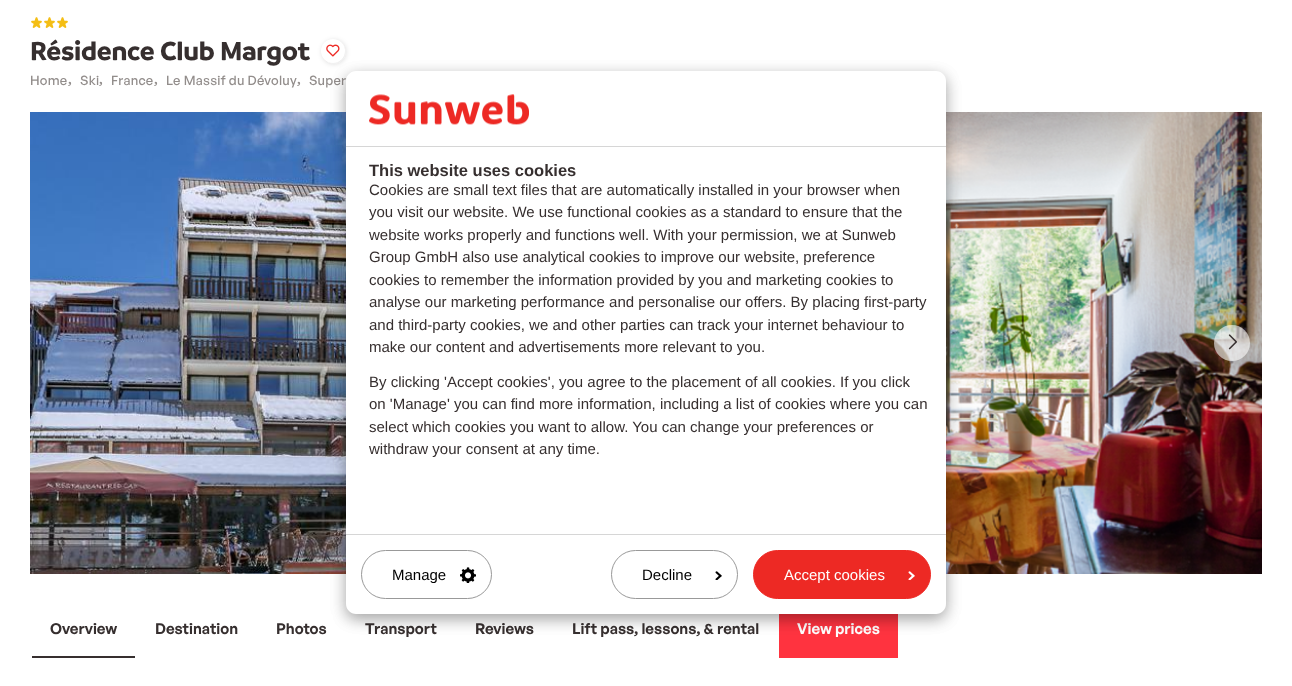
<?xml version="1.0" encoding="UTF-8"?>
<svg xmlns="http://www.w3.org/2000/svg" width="1292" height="686">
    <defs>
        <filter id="blur1" x="-50%" y="-200%" width="200%" height="500%"><feGaussianBlur stdDeviation="2.5"/></filter>
        <filter id="blur2" x="-50%" y="-200%" width="200%" height="500%"><feGaussianBlur stdDeviation="7.5"/></filter>
    </defs>
    <rect width="100%" height="100%" fill="#FFFFFF"/>
    <image x="31" y="17" width="37" height="11" href="img_01.png"/>
    <text x="30" y="60" font-family="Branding" font-size="28" font-weight="700" letter-spacing="-0.25" fill="#362F2F">Résidence Club Margot</text>
    <rect x="322" y="40" width="24" height="24" rx="12" fill="#362F2F" fill-opacity="0.14" filter="url(#blur1)"/>
    <circle cx="333" cy="51" r="12" fill="#FFFFFF"/>
    <image x="326" y="44" width="14" height="13" href="img_02.png"/>
    <text x="30" y="85" font-family="General Sans" font-size="13" font-weight="500" letter-spacing="0.25" fill="#928D8B">Home</text>
    <text x="68" y="84" font-family="General Sans" font-size="15" font-weight="500" letter-spacing="0.25" fill="#928D8B">,</text>
    <text x="80" y="85" font-family="General Sans" font-size="13" font-weight="500" letter-spacing="0.25" fill="#928D8B">Ski</text>
    <text x="99" y="84" font-family="General Sans" font-size="15" font-weight="500" letter-spacing="0.25" fill="#928D8B">,</text>
    <text x="111" y="85" font-family="General Sans" font-size="13" font-weight="500" letter-spacing="0.25" fill="#928D8B">France</text>
    <text x="154" y="84" font-family="General Sans" font-size="15" font-weight="500" letter-spacing="0.25" fill="#928D8B">,</text>
    <text x="166" y="85" font-family="General Sans" font-size="13" font-weight="500" letter-spacing="0.25" fill="#928D8B">Le Massif du Dévoluy</text>
    <text x="297" y="84" font-family="General Sans" font-size="15" font-weight="500" letter-spacing="0.25" fill="#928D8B">,</text>
    <text x="309" y="85" font-family="General Sans" font-size="13" font-weight="500" letter-spacing="0.25" fill="#928D8B">Super</text>
    <image x="30" y="112" width="316" height="462" href="img_03.png"/>
    <image x="946" y="112" width="316" height="462" href="img_04.png"/>
    <circle cx="1232" cy="343" r="18" fill="#FFFFFF" fill-opacity="0.6"/>
    <image x="1228" y="334" width="9" height="16" href="img_05.png"/>
    <text x="50" y="634" font-family="General Sans" font-size="15" font-weight="600" fill="#362F2F">Overview</text>
    <rect x="32" y="656" width="103" height="2" fill="#362F2F"/>
    <text x="155" y="634" font-family="General Sans" font-size="15" font-weight="600" fill="#362F2F">Destination</text>
    <text x="276" y="634" font-family="General Sans" font-size="15" font-weight="600" fill="#362F2F">Photos</text>
    <text x="365" y="634" font-family="General Sans" font-size="15" font-weight="600" fill="#362F2F">Transport</text>
    <text x="475" y="634" font-family="General Sans" font-size="15" font-weight="600" fill="#362F2F">Reviews</text>
    <text x="572" y="634" font-family="General Sans" font-size="15" font-weight="600" fill="#362F2F">Lift pass, lessons, &amp; rental</text>
    <rect x="779" y="614" width="119" height="44" fill="#FF333F"/>
    <text x="797" y="634" font-family="General Sans" font-size="15" font-weight="600" fill="#FFFFFF">View prices</text>
    <rect x="346" y="76" width="600" height="543" rx="10" fill="#000000" fill-opacity="0.19" filter="url(#blur2)"/>
    <rect x="346" y="76" width="600" height="543" rx="10" fill="#000000" fill-opacity="0.2" filter="url(#blur2)"/>
    <path d="M 356 71 H 936 C 941.5 71 946 75.5 946 81 V 147 H 346 V 81 C 346 75.5 350.5 71 356 71 Z" fill="#FFFFFF"/>
    <rect x="346" y="146" width="600" height="1" fill="#D6D6D6"/>
    <image x="369" y="94" width="160" height="31" href="img_06.png"/>
    <rect x="346" y="147" width="600" height="387" fill="#FFFFFF"/>
    <text x="369" y="176" font-family="Liberation Sans" font-size="16.5" font-weight="700" fill="#362F2F">This website uses cookies</text>
    <text font-family="Liberation Sans" font-size="15" fill="#362F2F">
        <tspan x="369" y="195">Cookies are small text files that are automatically installed in your browser when</tspan>
        <tspan x="369" y="217">you visit our website. We use functional cookies as a standard to ensure that the</tspan>
        <tspan x="369" y="240">website works properly and functions well. With your permission, we at Sunweb</tspan>
        <tspan x="369" y="262">Group GmbH also use analytical cookies to improve our website, preference</tspan>
        <tspan x="369" y="285">cookies to remember the information provided by you and marketing cookies to</tspan>
        <tspan x="369" y="307">analyse our marketing performance and personalise our offers. By placing first-party</tspan>
        <tspan x="369" y="330">and third-party cookies, we and other parties can track your internet behaviour to</tspan>
        <tspan x="369" y="352">make our content and advertisements more relevant to you.</tspan>
    </text>
    <text font-family="Liberation Sans" font-size="15" fill="#362F2F">
        <tspan x="369" y="387">By clicking 'Accept cookies', you agree to the placement of all cookies. If you click</tspan>
        <tspan x="369" y="409">on 'Manage' you can find more information, including a list of cookies where you can</tspan>
        <tspan x="369" y="432">select which cookies you want to allow. You can change your preferences or</tspan>
        <tspan x="369" y="454">withdraw your consent at any time.</tspan>
    </text>
    <path d="M 346 534 H 946 V 604 C 946 609.5 941.5 614 936 614 H 356 C 350.5 614 346 609.5 346 604 Z" fill="#FFFFFF"/>
    <rect x="346" y="534" width="600" height="1" fill="#D6D6D6"/>
    <rect x="361.5" y="550.5" width="130" height="48" rx="24" fill="none" stroke="#999999"/>
    <text x="392" y="580" font-family="Liberation Sans" font-size="15" fill="#000000">Manage</text>
    <image x="460" y="567" width="16" height="16" href="img_07.png"/>
    <rect x="611.5" y="550.5" width="126" height="48" rx="24" fill="none" stroke="#999999"/>
    <text x="642" y="580" font-family="Liberation Sans" font-size="15" fill="#000000">Decline</text>
    <image x="715" y="571" width="7" height="9" href="img_08.png"/>
    <rect x="753.5" y="550.5" width="177" height="48" rx="24" fill="#ED2924" stroke="#ED2924"/>
    <text x="784" y="580" font-family="Liberation Sans" font-size="15" fill="#FFFFFF">Accept cookies</text>
    <image x="908" y="571" width="7" height="9" href="img_09.png"/>
</svg>
